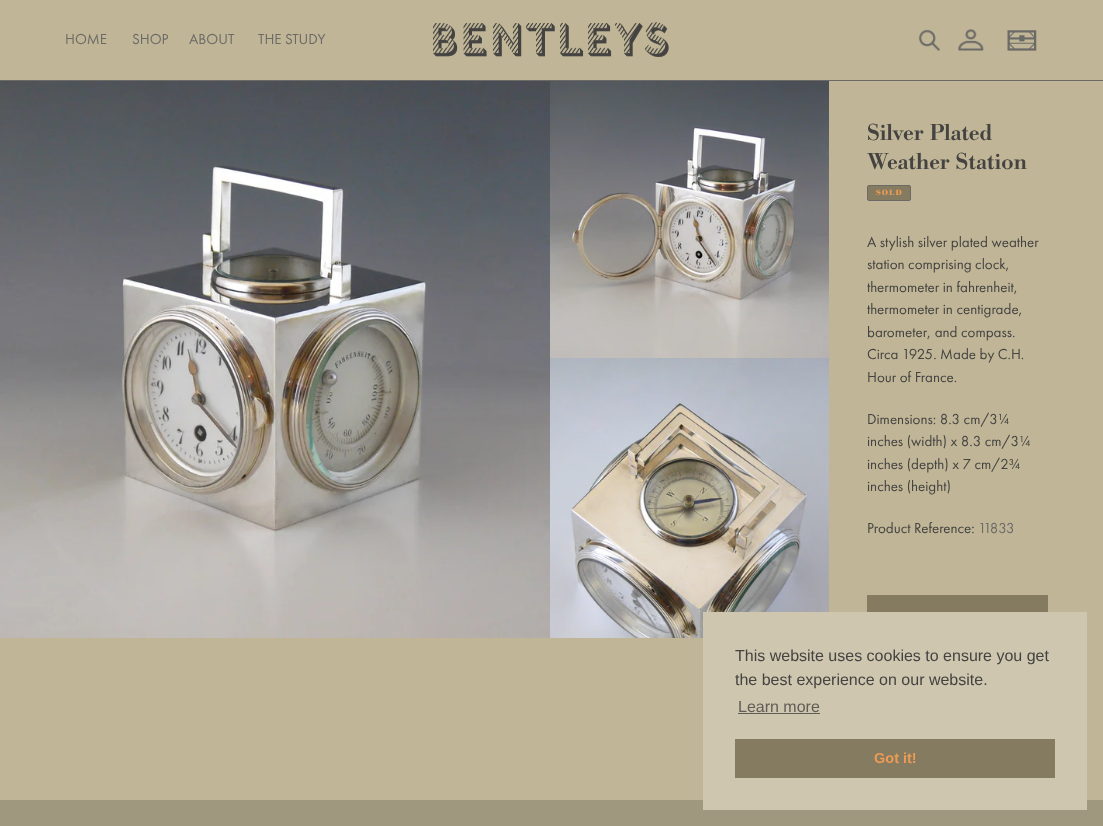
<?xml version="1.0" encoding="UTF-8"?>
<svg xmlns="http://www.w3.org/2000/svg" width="1103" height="826">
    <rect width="100%" height="100%" fill="#C0B697"/>
    <rect x="0" y="80" width="1103" height="1" fill="#6B6A66"/>
    <text x="65" y="44" font-family="Futura PT" font-size="15" fill="#6B6A66">HOME</text>
    <text x="132" y="44" font-family="Futura PT" font-size="15" fill="#6B6A66">SHOP</text>
    <text x="189" y="44" font-family="Futura PT" font-size="15" fill="#6B6A66">ABOUT</text>
    <text x="258" y="44" font-family="Futura PT" font-size="15" fill="#6B6A66">THE STUDY</text>
    <image x="433" y="22" width="236" height="35" href="img_01.png"/>
    <image x="918" y="29" width="22" height="22" href="img_02.png"/>
    <image x="958" y="29" width="26" height="22" href="img_03.png"/>
    <image x="1007" y="30" width="30" height="21" href="img_04.png"/>
    <image x="0" y="81" width="550" height="557" href="img_05.png"/>
    <image x="550" y="81" width="279" height="277" href="img_06.png"/>
    <image x="550" y="358" width="279" height="280" href="img_07.png"/>
    <text font-family="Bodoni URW" font-size="24" font-weight="500" fill="#444341">
        <tspan x="867" y="140">Silver Plated</tspan>
        <tspan x="867" y="169">Weather Station</tspan>
    </text>
    <rect x="867.5" y="185.5" width="43" height="15" rx="1.5" fill="#847B60" stroke="#6B6A66"/>
    <text x="876" y="195" font-family="Bodoni URW" font-size="8" font-weight="700" letter-spacing="1" fill="#EB9B55">SOLD</text>
    <text font-family="Futura PT" font-size="15" fill="#444341">
        <tspan x="867" y="247">A stylish silver plated weather</tspan>
        <tspan x="867" y="269">station comprising clock,</tspan>
        <tspan x="867" y="292">thermometer in fahrenheit,</tspan>
        <tspan x="867" y="314">thermometer in centigrade,</tspan>
        <tspan x="867" y="337">barometer, and compass.</tspan>
        <tspan x="867" y="359">Circa 1925. Made by C.H.</tspan>
        <tspan x="867" y="382">Hour of France.</tspan>
    </text>
    <text font-family="Futura PT" font-size="15" fill="#444341">
        <tspan x="867" y="424">Dimensions: 8.3 cm/3¼</tspan>
        <tspan x="867" y="446">inches (width) x 8.3 cm/3¼</tspan>
        <tspan x="867" y="469">inches (depth) x 7 cm/2¾</tspan>
        <tspan x="867" y="491">inches (height)</tspan>
    </text>
    <text x="867" y="533" font-family="Futura PT" font-size="15" fill="#444341">Product Reference:</text>
    <text x="978" y="533" font-family="Futura PT" font-size="15" fill="#6B6A66">11833</text>
    <rect x="867" y="595" width="181" height="17" fill="#847B60"/>
    <rect x="0" y="800" width="1103" height="26" fill="#9F977E"/>
    <rect x="703" y="612" width="384" height="198" fill="#CEC6AE"/>
    <text font-family="Liberation Sans" font-size="16" fill="#444341">
        <tspan x="735" y="661">This website uses cookies to ensure you get</tspan>
        <tspan x="735" y="685">the best experience on our website.</tspan>
    </text>
    <text x="738" y="712" font-family="Liberation Sans" font-size="16" fill="#605D57">Learn more</text>
    <rect x="738" y="713" width="82" height="1" fill="#605D57"/>
    <rect x="735" y="739" width="320" height="39" fill="#847B60"/>
    <text x="874" y="763" font-family="Liberation Sans" font-size="14.5" font-weight="700" fill="#EB9B55">Got it!</text>
</svg>
